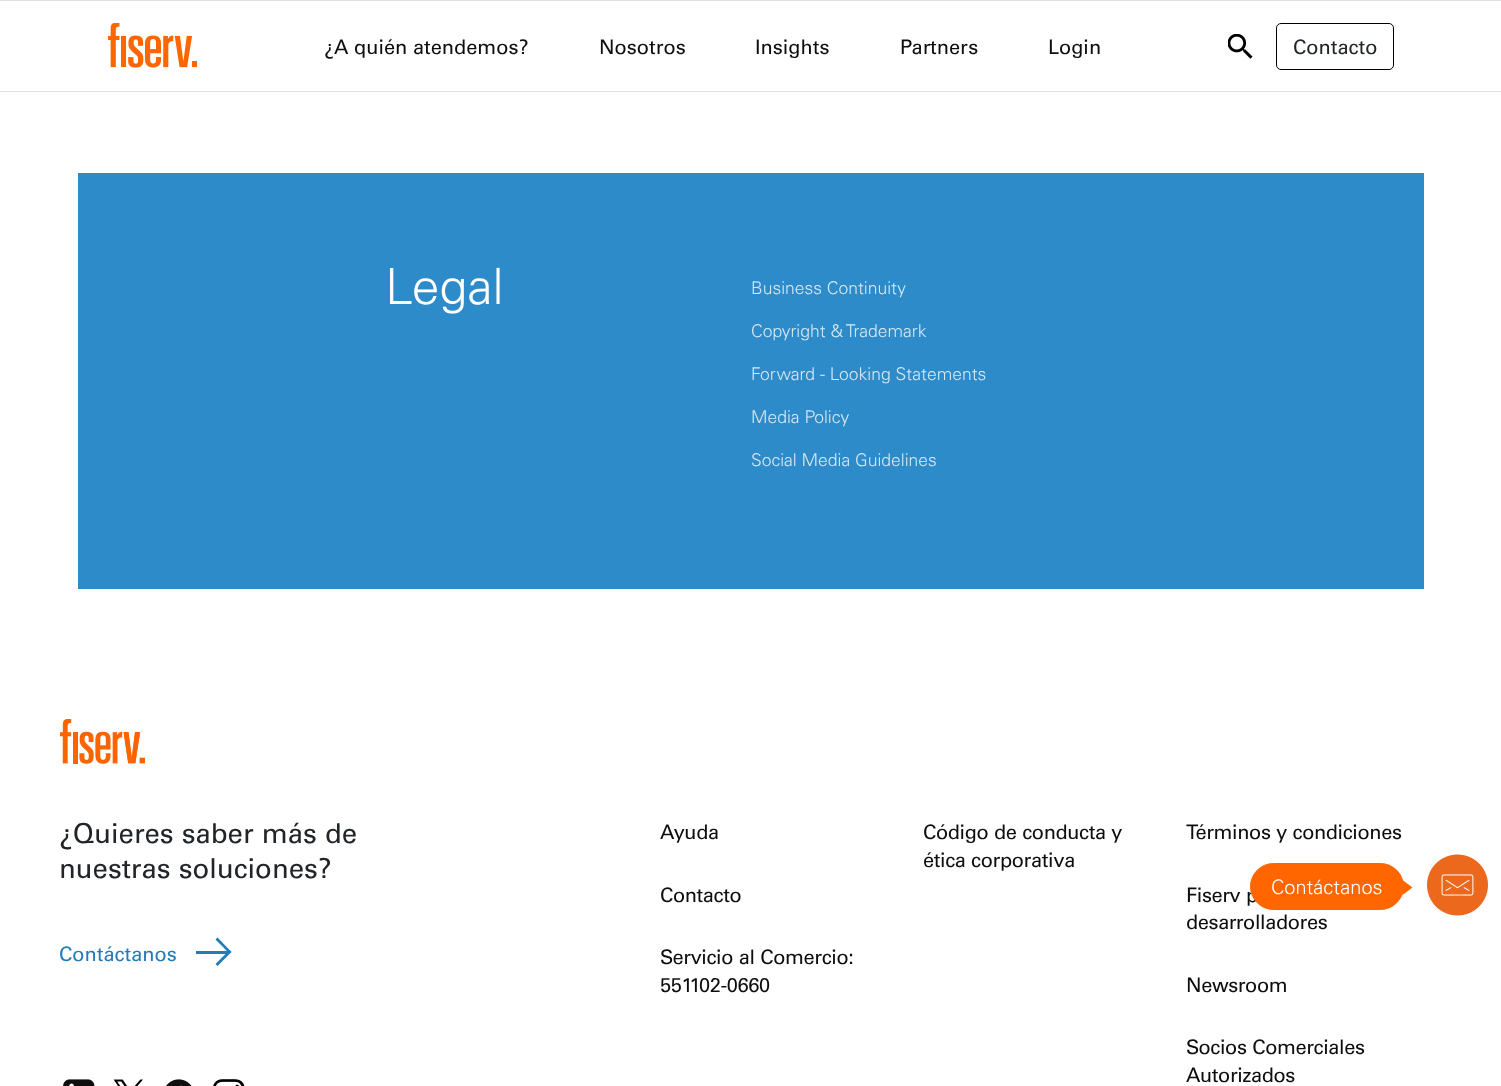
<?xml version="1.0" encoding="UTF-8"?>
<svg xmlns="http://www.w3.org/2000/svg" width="1501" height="1086">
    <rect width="100%" height="100%" fill="#FFFFFF"/>
    <rect x="0" y="0" width="1501" height="1" fill="#E0E0E0"/>
    <rect x="0" y="91" width="1501" height="1" fill="#E0E0E0"/>
    <image x="108" y="23" width="89" height="45" href="img_01.png"/>
    <text x="324" y="54" font-family="'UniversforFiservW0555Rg'" font-size="20" fill="#0E0E0E">¿A quién atendemos?</text>
    <text x="599" y="54" font-family="'UniversforFiservW0555Rg'" font-size="20" fill="#0E0E0E">Nosotros</text>
    <text x="755" y="54" font-family="'UniversforFiservW0555Rg'" font-size="20" fill="#0E0E0E">Insights</text>
    <text x="900" y="54" font-family="'UniversforFiservW0555Rg'" font-size="20" fill="#0E0E0E">Partners</text>
    <text x="1048" y="54" font-family="'UniversforFiservW0555Rg'" font-size="20" fill="#0E0E0E">Login</text>
    <image x="1228" y="34" width="25" height="25" href="img_02.png"/>
    <rect x="1276.5" y="23.5" width="117" height="46" rx="4.5" fill="none" stroke="#000000"/>
    <text x="1293" y="54" font-family="'UniversforFiservW0555Rg'" font-size="20" fill="#212529">Contacto</text>
    <text x="1186" y="902" word-spacing="0.5" font-family="'UniversforFiservW0555Rg'" font-size="20" letter-spacing="-0.4" fill="#0E0E0E">Fiserv p</text>
    <rect x="1250.5" y="863.5" width="153" height="46" rx="23" fill="#FF6600" stroke="#FF6600"/>
    <text x="1271" y="894" font-family="'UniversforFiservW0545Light'" font-size="20" font-weight="300" fill="#FFFFFF">Contáctanos</text>
    <path d="M 1402.5 895 V 880 L 1412.5 887.5 Z" fill="#FF6600"/>
    <image x="1427" y="854" width="61" height="62" href="img_03.png"/>
    <rect x="78" y="173" width="1346" height="416" fill="#2E8BC9"/>
    <text x="385" y="304" font-family="'UniversforFiservW0545Light'" font-size="50" font-weight="300" fill="#FFFFFF">Legal</text>
    <text x="751" y="294" font-family="'UniversforFiservW0545Light'" font-size="17.5" font-weight="300" fill="#D5E8F4">Business Continuity</text>
    <text x="751" y="337" font-family="'UniversforFiservW0545Light'" font-size="17.5" font-weight="300" fill="#D5E8F4">Copyright &amp; Trademark</text>
    <text x="751" y="380" font-family="'UniversforFiservW0545Light'" font-size="17.5" font-weight="300" fill="#D5E8F4">Forward - Looking Statements</text>
    <text x="751" y="423" font-family="'UniversforFiservW0545Light'" font-size="17.5" font-weight="300" fill="#D5E8F4">Media Policy</text>
    <text x="751" y="466" font-family="'UniversforFiservW0545Light'" font-size="17.5" font-weight="300" fill="#D5E8F4">Social Media Guidelines</text>
    <image x="60" y="719" width="85" height="45" href="img_04.png"/>
    <text font-family="'UniversforFiservW0555Rg'" font-size="27.5" fill="#212529">
        <tspan x="59" y="843" word-spacing="0.5">¿Quieres saber más de</tspan>
        <tspan x="59" y="878" word-spacing="0.5">nuestras soluciones?</tspan>
    </text>
    <text x="59" y="961" font-family="'UniversforFiservW0555Rg'" font-size="20" fill="#237CB8">Contáctanos</text>
    <rect x="196" y="951" width="32" height="3" fill="#237CB8"/>
    <path d="M 217.5 937.5 L 231.5 952 L 229.5 953.5 L 215.5 939.5 Z" fill="#237CB8"/>
    <path d="M 229.5 950 L 231.5 952 L 217.5 966 L 215.5 964 Z" fill="#237CB8"/>
    <image x="63" y="1079" width="32" height="7" href="img_05.png"/>
    <image x="113" y="1079" width="30" height="7" href="img_06.png"/>
    <image x="166" y="1079" width="26" height="7" href="img_07.png"/>
    <image x="213" y="1079" width="32" height="7" href="img_08.png"/>
    <text x="660" y="839" font-family="'UniversforFiservW0555Rg'" font-size="20" letter-spacing="-0.4" fill="#0E0E0E">Ayuda</text>
    <text x="660" y="902" font-family="'UniversforFiservW0555Rg'" font-size="20" letter-spacing="-0.4" fill="#0E0E0E">Contacto</text>
    <text font-family="'UniversforFiservW0555Rg'" font-size="20" letter-spacing="-0.4" fill="#0E0E0E">
        <tspan x="660" y="964" word-spacing="0.5">Servicio al Comercio:</tspan>
        <tspan x="660" y="992">551102-0660</tspan>
    </text>
    <text font-family="'UniversforFiservW0555Rg'" font-size="20" letter-spacing="-0.4" fill="#0E0E0E">
        <tspan x="923" y="839" word-spacing="0.5">Código de conducta y</tspan>
        <tspan x="923" y="867" word-spacing="0.5">ética corporativa</tspan>
    </text>
    <text x="1186" y="839" word-spacing="0.5" font-family="'UniversforFiservW0555Rg'" font-size="20" letter-spacing="-0.4" fill="#0E0E0E">Términos y condiciones</text>
    <text x="1186" y="929" font-family="'UniversforFiservW0555Rg'" font-size="20" letter-spacing="-0.4" fill="#0E0E0E">desarrolladores</text>
    <text x="1186" y="992" font-family="'UniversforFiservW0555Rg'" font-size="20" letter-spacing="-0.4" fill="#0E0E0E">Newsroom</text>
    <text font-family="'UniversforFiservW0555Rg'" font-size="20" letter-spacing="-0.4" fill="#0E0E0E">
        <tspan x="1186" y="1054" word-spacing="0.5">Socios Comerciales</tspan>
        <tspan x="1186" y="1082">Autorizados</tspan>
    </text>
</svg>
